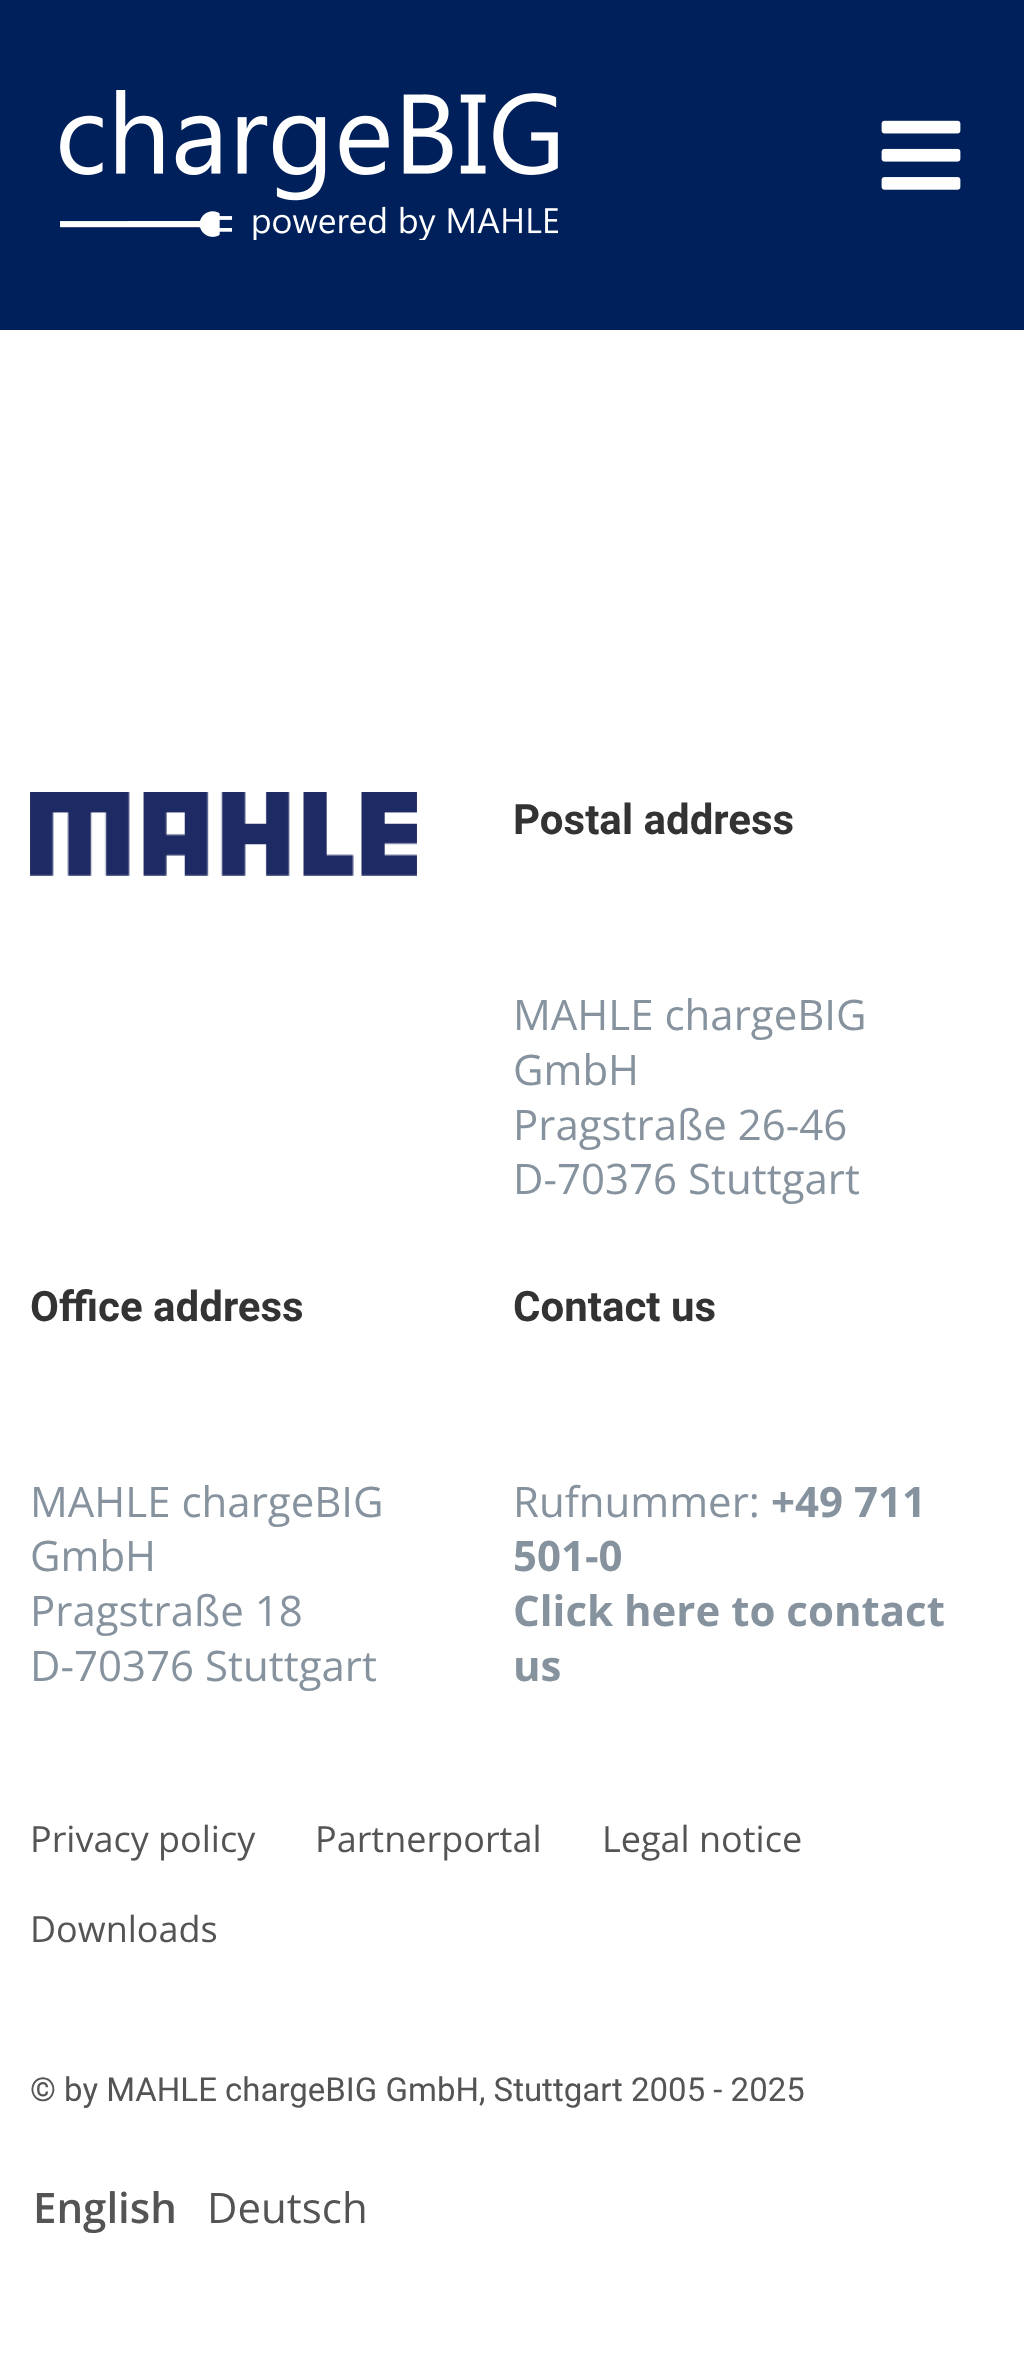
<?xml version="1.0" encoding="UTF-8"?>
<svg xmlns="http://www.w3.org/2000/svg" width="1024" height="2361">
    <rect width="100%" height="100%" fill="#FFFFFF"/>
    <rect x="0" y="0" width="1024" height="330" fill="#00205B"/>
    <image x="60" y="90" width="498" height="150" href="img_01.png"/>
    <image x="881" y="120" width="80" height="70" href="img_02.png"/>
    <image x="30" y="792" width="387" height="84" href="img_03.png"/>
    <text x="513" y="834" font-family="Roboto" font-size="42" font-weight="700" fill="#333333">Postal address</text>
    <text font-family="Open Sans" font-size="42" fill="#86939E">
        <tspan x="513" y="1030">MAHLE chargeBIG</tspan>
        <tspan x="513" y="1085">GmbH</tspan>
        <tspan x="513" y="1140">Pragstraße 26-46</tspan>
        <tspan x="513" y="1194">D-70376 Stuttgart</tspan>
    </text>
    <text x="30" y="1321" font-family="Roboto" font-size="42" font-weight="700" fill="#333333">Office address</text>
    <text font-family="Open Sans" font-size="42" fill="#86939E">
        <tspan x="30" y="1517">MAHLE chargeBIG</tspan>
        <tspan x="30" y="1571">GmbH</tspan>
        <tspan x="30" y="1626">Pragstraße 18</tspan>
        <tspan x="30" y="1681">D-70376 Stuttgart</tspan>
    </text>
    <text x="513" y="1321" font-family="Roboto" font-size="42" font-weight="700" fill="#333333">Contact us</text>
    <text x="513" y="1517" font-family="Open Sans" font-size="42" fill="#86939E">Rufnummer:</text>
    <text x="771" y="1517" font-family="Open Sans" font-size="42" font-weight="700" fill="#86939E">+49 711</text>
    <text font-family="Open Sans" font-size="42" font-weight="700" fill="#86939E">
        <tspan x="513" y="1571">501-0</tspan>
        <tspan x="513" y="1626">Click here to contact</tspan>
        <tspan x="513" y="1681">us</tspan>
    </text>
    <text x="30" y="1852" font-family="Open Sans" font-size="36" fill="#545454">Privacy policy</text>
    <text x="315" y="1852" font-family="Open Sans" font-size="36" fill="#545454">Partnerportal</text>
    <text x="602" y="1852" font-family="Open Sans" font-size="36" fill="#545454">Legal notice</text>
    <text x="30" y="1942" font-family="Open Sans" font-size="36" fill="#545454">Downloads</text>
    <text x="30" y="2101" font-family="Roboto" font-size="33" fill="#545454">© by MAHLE chargeBIG GmbH, Stuttgart 2005 - 2025</text>
    <text x="33" y="2223" font-family="Open Sans" font-size="42" font-weight="600" fill="#545454">English</text>
    <text x="207" y="2223" font-family="Open Sans" font-size="42" fill="#545454">Deutsch</text>
</svg>
